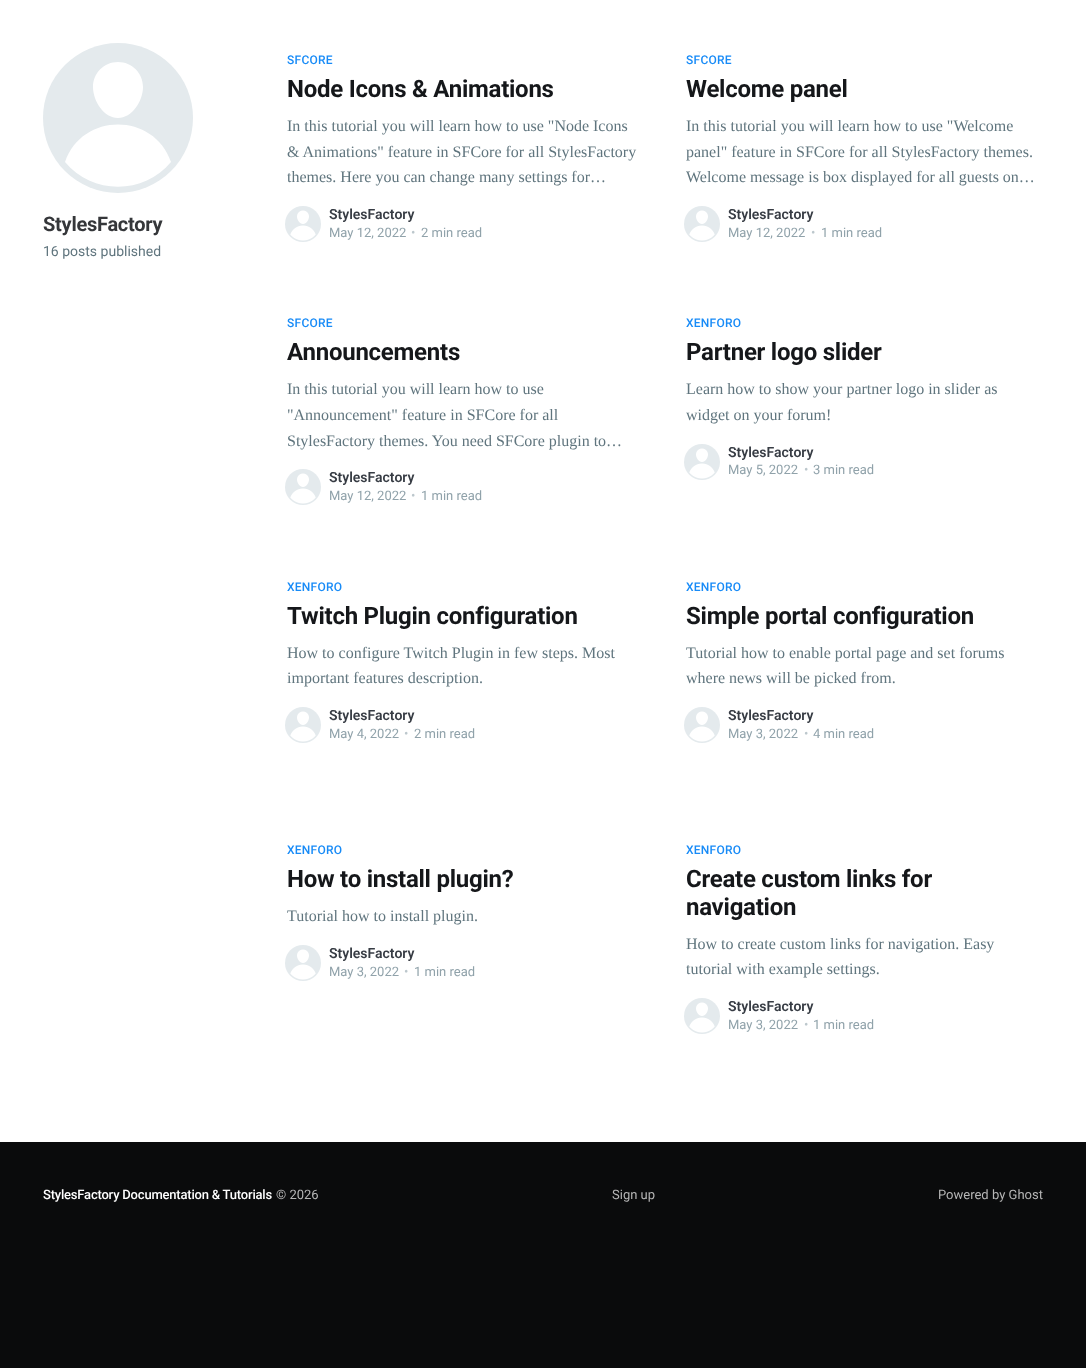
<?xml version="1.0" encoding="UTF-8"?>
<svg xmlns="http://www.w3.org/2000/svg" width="1086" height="1368">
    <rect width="100%" height="100%" fill="#FFFFFF"/>
    <circle cx="118" cy="118" r="75" fill="#E4EAED"/>
    <path d="M 65 162 C 82 112 154 112 171 162 C 144 195 92 195 65 162 Z M 118 118 C 132 118 143 101 143 87 C 143 73 132 62 118 62 C 104 62 93 73 93 87 C 93 101 104 118 118 118 Z" fill="#FFFFFF" fill-rule="evenodd"/>
    <text x="43" y="231" font-family="Roboto" font-size="20" font-weight="700" letter-spacing="-0.25" fill="#35373A">StylesFactory</text>
    <text x="43" y="256" font-family="Roboto" font-size="14" fill="#60757E">16 posts published</text>
    <text x="287" y="64" font-family="Roboto" font-size="12" font-weight="500" letter-spacing="0.25" fill="#188BF7">SFCORE</text>
    <text x="287" y="97" font-family="Roboto" font-size="24" font-weight="700" letter-spacing="-0.25" fill="#15171A">Node Icons &amp; Animations</text>
    <text font-family="Liberation Serif" font-size="16" fill="#60757E">
        <tspan x="287" y="131">In this tutorial you will learn how to use "Node Icons</tspan>
        <tspan x="287" y="157">&amp; Animations" feature in SFCore for all StylesFactory</tspan>
        <tspan x="287" y="182">themes. Here you can change many settings for…</tspan>
    </text>
    <circle cx="303" cy="224" r="18" fill="#E4EAED"/>
    <image x="290" y="210" width="26" height="31" href="img_01.png"/>
    <text x="329" y="219" font-family="Roboto" font-size="14" font-weight="600" fill="#373C44">StylesFactory</text>
    <text x="329" y="237" font-family="Roboto" font-size="13" fill="#90A2AA">May 12, 2022</text>
    <text x="411" y="237" font-family="Roboto" font-size="13" fill="#BCC7CC">•</text>
    <text x="421" y="237" font-family="Roboto" font-size="13" fill="#90A2AA">2 min read</text>
    <text x="686" y="64" font-family="Roboto" font-size="12" font-weight="500" letter-spacing="0.25" fill="#188BF7">SFCORE</text>
    <text x="686" y="97" font-family="Roboto" font-size="24" font-weight="700" letter-spacing="-0.25" fill="#15171A">Welcome panel</text>
    <text font-family="Liberation Serif" font-size="16" fill="#60757E">
        <tspan x="686" y="131">In this tutorial you will learn how to use "Welcome</tspan>
        <tspan x="686" y="157">panel" feature in SFCore for all StylesFactory themes.</tspan>
        <tspan x="686" y="182">Welcome message is box displayed for all guests on…</tspan>
    </text>
    <circle cx="702" cy="224" r="18" fill="#E4EAED"/>
    <image x="689" y="210" width="26" height="31" href="img_01.png"/>
    <text x="728" y="219" font-family="Roboto" font-size="14" font-weight="600" fill="#373C44">StylesFactory</text>
    <text x="728" y="237" font-family="Roboto" font-size="13" fill="#90A2AA">May 12, 2022</text>
    <text x="811" y="237" font-family="Roboto" font-size="13" fill="#BCC7CC">•</text>
    <text x="821" y="237" font-family="Roboto" font-size="13" fill="#90A2AA">1 min read</text>
    <text x="287" y="327" font-family="Roboto" font-size="12" font-weight="500" letter-spacing="0.25" fill="#188BF7">SFCORE</text>
    <text x="287" y="360" font-family="Roboto" font-size="24" font-weight="700" letter-spacing="-0.25" fill="#15171A">Announcements</text>
    <text font-family="Liberation Serif" font-size="16" fill="#60757E">
        <tspan x="287" y="394">In this tutorial you will learn how to use</tspan>
        <tspan x="287" y="420">"Announcement" feature in SFCore for all</tspan>
        <tspan x="287" y="446">StylesFactory themes. You need SFCore plugin to…</tspan>
    </text>
    <circle cx="303" cy="487" r="18" fill="#E4EAED"/>
    <image x="290" y="473" width="26" height="31" href="img_01.png"/>
    <text x="329" y="482" font-family="Roboto" font-size="14" font-weight="600" fill="#373C44">StylesFactory</text>
    <text x="329" y="500" font-family="Roboto" font-size="13" fill="#90A2AA">May 12, 2022</text>
    <text x="411" y="500" font-family="Roboto" font-size="13" fill="#BCC7CC">•</text>
    <text x="421" y="500" font-family="Roboto" font-size="13" fill="#90A2AA">1 min read</text>
    <text x="686" y="327" font-family="Roboto" font-size="12" font-weight="500" letter-spacing="0.25" fill="#188BF7">XENFORO</text>
    <text x="686" y="360" font-family="Roboto" font-size="24" font-weight="700" letter-spacing="-0.25" fill="#15171A">Partner logo slider</text>
    <text font-family="Liberation Serif" font-size="16" fill="#60757E">
        <tspan x="686" y="394">Learn how to show your partner logo in slider as</tspan>
        <tspan x="686" y="420">widget on your forum!</tspan>
    </text>
    <circle cx="702" cy="462" r="18" fill="#E4EAED"/>
    <image x="689" y="448" width="26" height="31" href="img_01.png"/>
    <text x="728" y="457" font-family="Roboto" font-size="14" font-weight="600" fill="#373C44">StylesFactory</text>
    <text x="728" y="474" font-family="Roboto" font-size="13" fill="#90A2AA">May 5, 2022</text>
    <text x="804" y="474" font-family="Roboto" font-size="13" fill="#BCC7CC">•</text>
    <text x="813" y="474" font-family="Roboto" font-size="13" fill="#90A2AA">3 min read</text>
    <text x="287" y="591" font-family="Roboto" font-size="12" font-weight="500" letter-spacing="0.25" fill="#188BF7">XENFORO</text>
    <text x="287" y="624" font-family="Roboto" font-size="24" font-weight="700" letter-spacing="-0.25" fill="#15171A">Twitch Plugin configuration</text>
    <text font-family="Liberation Serif" font-size="16" fill="#60757E">
        <tspan x="287" y="658">How to configure Twitch Plugin in few steps. Most</tspan>
        <tspan x="287" y="683">important features description.</tspan>
    </text>
    <circle cx="303" cy="725" r="18" fill="#E4EAED"/>
    <image x="290" y="711" width="26" height="31" href="img_01.png"/>
    <text x="329" y="720" font-family="Roboto" font-size="14" font-weight="600" fill="#373C44">StylesFactory</text>
    <text x="329" y="738" font-family="Roboto" font-size="13" fill="#90A2AA">May 4, 2022</text>
    <text x="404" y="738" font-family="Roboto" font-size="13" fill="#BCC7CC">•</text>
    <text x="414" y="738" font-family="Roboto" font-size="13" fill="#90A2AA">2 min read</text>
    <text x="686" y="591" font-family="Roboto" font-size="12" font-weight="500" letter-spacing="0.25" fill="#188BF7">XENFORO</text>
    <text x="686" y="624" font-family="Roboto" font-size="24" font-weight="700" letter-spacing="-0.25" fill="#15171A">Simple portal configuration</text>
    <text font-family="Liberation Serif" font-size="16" fill="#60757E">
        <tspan x="686" y="658">Tutorial how to enable portal page and set forums</tspan>
        <tspan x="686" y="683">where news will be picked from.</tspan>
    </text>
    <circle cx="702" cy="725" r="18" fill="#E4EAED"/>
    <image x="689" y="711" width="26" height="31" href="img_01.png"/>
    <text x="728" y="720" font-family="Roboto" font-size="14" font-weight="600" fill="#373C44">StylesFactory</text>
    <text x="728" y="738" font-family="Roboto" font-size="13" fill="#90A2AA">May 3, 2022</text>
    <text x="804" y="738" font-family="Roboto" font-size="13" fill="#BCC7CC">•</text>
    <text x="813" y="738" font-family="Roboto" font-size="13" fill="#90A2AA">4 min read</text>
    <text x="287" y="854" font-family="Roboto" font-size="12" font-weight="500" letter-spacing="0.25" fill="#188BF7">XENFORO</text>
    <text x="287" y="887" font-family="Roboto" font-size="24" font-weight="700" letter-spacing="-0.25" fill="#15171A">How to install plugin?</text>
    <text x="287" y="921" font-family="Liberation Serif" font-size="16" fill="#60757E">Tutorial how to install plugin.</text>
    <circle cx="303" cy="963" r="18" fill="#E4EAED"/>
    <image x="290" y="949" width="26" height="31" href="img_01.png"/>
    <text x="329" y="958" font-family="Roboto" font-size="14" font-weight="600" fill="#373C44">StylesFactory</text>
    <text x="329" y="976" font-family="Roboto" font-size="13" fill="#90A2AA">May 3, 2022</text>
    <text x="404" y="976" font-family="Roboto" font-size="13" fill="#BCC7CC">•</text>
    <text x="414" y="976" font-family="Roboto" font-size="13" fill="#90A2AA">1 min read</text>
    <text x="686" y="854" font-family="Roboto" font-size="12" font-weight="500" letter-spacing="0.25" fill="#188BF7">XENFORO</text>
    <text font-family="Roboto" font-size="24" font-weight="700" letter-spacing="-0.25" fill="#15171A">
        <tspan x="686" y="887">Create custom links for</tspan>
        <tspan x="686" y="915">navigation</tspan>
    </text>
    <text font-family="Liberation Serif" font-size="16" fill="#60757E">
        <tspan x="686" y="949">How to create custom links for navigation. Easy</tspan>
        <tspan x="686" y="974">tutorial with example settings.</tspan>
    </text>
    <circle cx="702" cy="1016" r="18" fill="#E4EAED"/>
    <image x="689" y="1002" width="26" height="31" href="img_01.png"/>
    <text x="728" y="1011" font-family="Roboto" font-size="14" font-weight="600" fill="#373C44">StylesFactory</text>
    <text x="728" y="1029" font-family="Roboto" font-size="13" fill="#90A2AA">May 3, 2022</text>
    <text x="804" y="1029" font-family="Roboto" font-size="13" fill="#BCC7CC">•</text>
    <text x="813" y="1029" font-family="Roboto" font-size="13" fill="#90A2AA">1 min read</text>
    <rect x="0" y="1142" width="1086" height="226" fill="#0A0B0C"/>
    <text x="43" y="1199" font-family="Roboto" font-size="13" font-weight="500" letter-spacing="-0.2" fill="#FFFFFF">StylesFactory Documentation &amp; Tutorials</text>
    <text x="276" y="1199" font-family="Roboto" font-size="13" fill="#B6B6B6">© 2026</text>
    <text x="612" y="1199" font-family="Roboto" font-size="13" fill="#B6B6B6">Sign up</text>
    <text x="938" y="1199" font-family="Roboto" font-size="13" fill="#B6B6B6">Powered by Ghost</text>
</svg>
